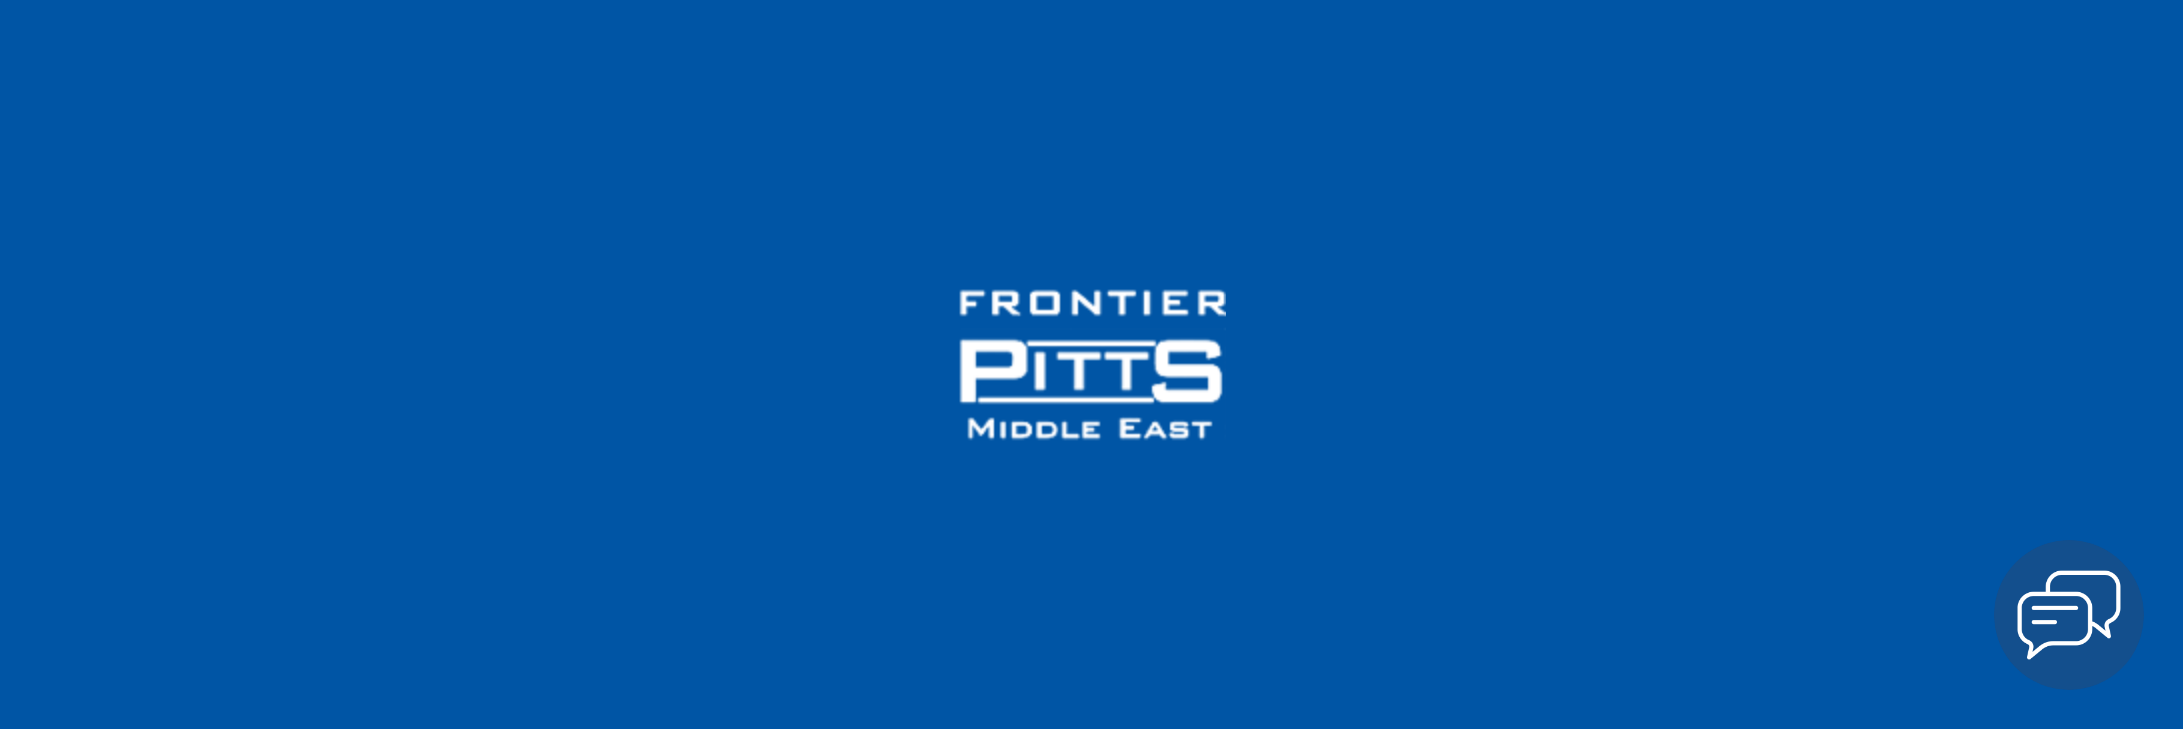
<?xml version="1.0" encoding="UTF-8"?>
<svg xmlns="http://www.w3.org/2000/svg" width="2183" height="729">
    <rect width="100%" height="100%" fill="#0055A5"/>
    <image x="959" y="289" width="267" height="152" href="img_01.png"/>
    <image x="1994" y="540" width="150" height="150" href="img_02.png"/>
</svg>
